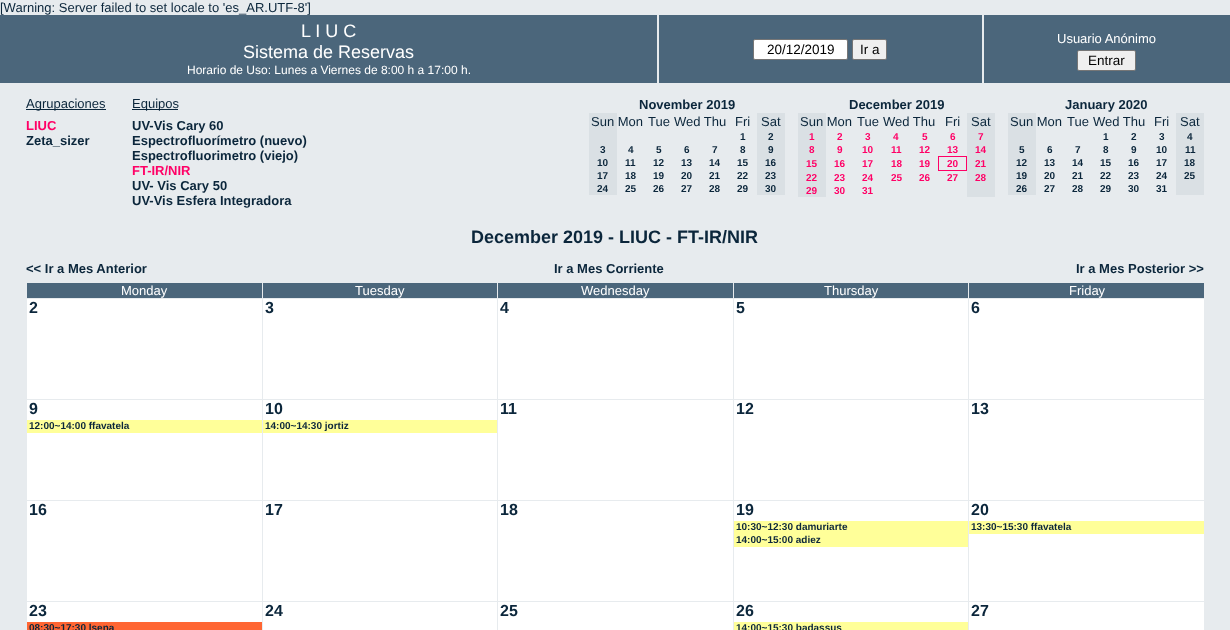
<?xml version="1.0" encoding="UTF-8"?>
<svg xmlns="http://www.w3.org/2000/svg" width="1230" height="630">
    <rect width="100%" height="100%" fill="#E7EBEE"/>
    <text x="0" y="12" font-family="Liberation Sans" font-size="13" fill="#0B263B">[Warning: Server failed to set locale to 'es_AR.UTF-8']</text>
    <rect x="0" y="15" width="657" height="68" fill="#4B667B"/>
    <text x="301" y="37" font-family="Liberation Sans" font-size="18" fill="#FFFFFF">L I U C</text>
    <text x="243" y="58" font-family="Liberation Sans" font-size="18" fill="#FFFFFF">Sistema de Reservas</text>
    <text x="187" y="74" font-family="Liberation Sans" font-size="12" fill="#FFFFFF">Horario de Uso: Lunes a Viernes de 8:00 h a 17:00 h.</text>
    <rect x="659" y="15" width="323" height="68" fill="#4B667B"/>
    <rect x="753.5" y="39.5" width="94" height="20" rx="1.5" fill="#FFFFFF" stroke="#767676"/>
    <text x="767" y="54" font-family="Liberation Sans" font-size="13.5" fill="#000000">20/12/2019</text>
    <rect x="852.5" y="39.5" width="34" height="20" rx="1.5" fill="#EFEFEF" stroke="#767676"/>
    <text x="860" y="54" font-family="Liberation Sans" font-size="13.5" fill="#000000">Ir a</text>
    <rect x="984" y="15" width="246" height="68" fill="#4B667B"/>
    <text x="1057" y="43" font-family="Liberation Sans" font-size="13" fill="#FFFFFF">Usuario Anónimo</text>
    <rect x="1077.5" y="50.5" width="58" height="20" rx="1.5" fill="#EFEFEF" stroke="#767676"/>
    <text x="1088" y="65" font-family="Liberation Sans" font-size="13.5" fill="#000000">Entrar</text>
    <rect x="26" y="109" width="80" height="1" fill="#0B263B"/>
    <text x="26" y="108" font-family="Liberation Sans" font-size="13" fill="#0B263B">Agrupaciones</text>
    <text x="26" y="130" font-family="Liberation Sans" font-size="13" font-weight="700" fill="#FF0066">LIUC</text>
    <text x="26" y="145" font-family="Liberation Sans" font-size="13" font-weight="700" fill="#0B263B">Zeta_sizer</text>
    <rect x="132" y="109" width="46" height="1" fill="#0B263B"/>
    <text x="132" y="108" font-family="Liberation Sans" font-size="13" fill="#0B263B">Equipos</text>
    <text font-family="Liberation Sans" font-size="13" font-weight="700" fill="#0B263B">
        <tspan x="132" y="130">UV-Vis Cary 60</tspan>
        <tspan x="132" y="145">Espectrofluorímetro (nuevo)</tspan>
        <tspan x="132" y="160">Espectrofluorimetro (viejo)</tspan>
    </text>
    <text x="132" y="175" font-family="Liberation Sans" font-size="13" font-weight="700" fill="#FF0066">FT-IR/NIR</text>
    <text font-family="Liberation Sans" font-size="13" font-weight="700" fill="#0B263B">
        <tspan x="132" y="190">UV- Vis Cary 50</tspan>
        <tspan x="132" y="205">UV-Vis Esfera Integradora</tspan>
    </text>
    <text x="639" y="109" font-family="Liberation Sans" font-size="13" font-weight="700" fill="#0B263B">November 2019</text>
    <rect x="589" y="113" width="28" height="82" fill="#DAE0E4"/>
    <text x="591" y="126" font-family="Liberation Sans" font-size="13" fill="#0B263B">Sun Mon</text>
    <text x="648" y="126" font-family="Liberation Sans" font-size="13" fill="#0B263B">Tue</text>
    <text x="674" y="126" font-family="Liberation Sans" font-size="13" fill="#0B263B">Wed Thu</text>
    <text x="735" y="126" font-family="Liberation Sans" font-size="13" fill="#0B263B">Fri</text>
    <rect x="757" y="113" width="28" height="82" fill="#DAE0E4"/>
    <text x="761" y="126" font-family="Liberation Sans" font-size="13" fill="#0B263B">Sat</text>
    <text x="740" y="140" font-family="Liberation Sans" font-size="10" font-weight="700" fill="#0B263B">1</text>
    <text x="768" y="140" font-family="Liberation Sans" font-size="10" font-weight="700" fill="#0B263B">2</text>
    <text x="600" y="153" font-family="Liberation Sans" font-size="10" font-weight="700" fill="#0B263B">3</text>
    <text x="628" y="153" font-family="Liberation Sans" font-size="10" font-weight="700" fill="#0B263B">4</text>
    <text x="656" y="153" font-family="Liberation Sans" font-size="10" font-weight="700" fill="#0B263B">5</text>
    <text x="684" y="153" font-family="Liberation Sans" font-size="10" font-weight="700" fill="#0B263B">6</text>
    <text x="712" y="153" font-family="Liberation Sans" font-size="10" font-weight="700" fill="#0B263B">7</text>
    <text x="740" y="153" font-family="Liberation Sans" font-size="10" font-weight="700" fill="#0B263B">8</text>
    <text x="768" y="153" font-family="Liberation Sans" font-size="10" font-weight="700" fill="#0B263B">9</text>
    <text x="597" y="166" font-family="Liberation Sans" font-size="10" font-weight="700" fill="#0B263B">10</text>
    <text x="625" y="166" font-family="Liberation Sans" font-size="10" font-weight="700" fill="#0B263B">11</text>
    <text x="653" y="166" font-family="Liberation Sans" font-size="10" font-weight="700" fill="#0B263B">12</text>
    <text x="681" y="166" font-family="Liberation Sans" font-size="10" font-weight="700" fill="#0B263B">13</text>
    <text x="709" y="166" font-family="Liberation Sans" font-size="10" font-weight="700" fill="#0B263B">14</text>
    <text x="737" y="166" font-family="Liberation Sans" font-size="10" font-weight="700" fill="#0B263B">15</text>
    <text x="765" y="166" font-family="Liberation Sans" font-size="10" font-weight="700" fill="#0B263B">16</text>
    <text x="597" y="179" font-family="Liberation Sans" font-size="10" font-weight="700" fill="#0B263B">17</text>
    <text x="625" y="179" font-family="Liberation Sans" font-size="10" font-weight="700" fill="#0B263B">18</text>
    <text x="653" y="179" font-family="Liberation Sans" font-size="10" font-weight="700" fill="#0B263B">19</text>
    <text x="681" y="179" font-family="Liberation Sans" font-size="10" font-weight="700" fill="#0B263B">20</text>
    <text x="709" y="179" font-family="Liberation Sans" font-size="10" font-weight="700" fill="#0B263B">21</text>
    <text x="737" y="179" font-family="Liberation Sans" font-size="10" font-weight="700" fill="#0B263B">22</text>
    <text x="765" y="179" font-family="Liberation Sans" font-size="10" font-weight="700" fill="#0B263B">23</text>
    <text x="597" y="192" font-family="Liberation Sans" font-size="10" font-weight="700" fill="#0B263B">24</text>
    <text x="625" y="192" font-family="Liberation Sans" font-size="10" font-weight="700" fill="#0B263B">25</text>
    <text x="653" y="192" font-family="Liberation Sans" font-size="10" font-weight="700" fill="#0B263B">26</text>
    <text x="681" y="192" font-family="Liberation Sans" font-size="10" font-weight="700" fill="#0B263B">27</text>
    <text x="709" y="192" font-family="Liberation Sans" font-size="10" font-weight="700" fill="#0B263B">28</text>
    <text x="737" y="192" font-family="Liberation Sans" font-size="10" font-weight="700" fill="#0B263B">29</text>
    <text x="765" y="192" font-family="Liberation Sans" font-size="10" font-weight="700" fill="#0B263B">30</text>
    <text x="849" y="109" font-family="Liberation Sans" font-size="13" font-weight="700" fill="#0B263B">December 2019</text>
    <rect x="798" y="113" width="28" height="84" fill="#DAE0E4"/>
    <text x="800" y="126" font-family="Liberation Sans" font-size="13" fill="#0B263B">Sun Mon</text>
    <text x="857" y="126" font-family="Liberation Sans" font-size="13" fill="#0B263B">Tue</text>
    <text x="883" y="126" font-family="Liberation Sans" font-size="13" fill="#0B263B">Wed Thu</text>
    <text x="945" y="126" font-family="Liberation Sans" font-size="13" fill="#0B263B">Fri</text>
    <rect x="967" y="113" width="28" height="84" fill="#DAE0E4"/>
    <text x="971" y="126" font-family="Liberation Sans" font-size="13" fill="#0B263B">Sat</text>
    <text x="809" y="140" font-family="Liberation Sans" font-size="10" font-weight="700" fill="#FF0066">1</text>
    <text x="837" y="140" font-family="Liberation Sans" font-size="10" font-weight="700" fill="#FF0066">2</text>
    <text x="865" y="140" font-family="Liberation Sans" font-size="10" font-weight="700" fill="#FF0066">3</text>
    <text x="893" y="140" font-family="Liberation Sans" font-size="10" font-weight="700" fill="#FF0066">4</text>
    <text x="922" y="140" font-family="Liberation Sans" font-size="10" font-weight="700" fill="#FF0066">5</text>
    <text x="950" y="140" font-family="Liberation Sans" font-size="10" font-weight="700" fill="#FF0066">6</text>
    <text x="978" y="140" font-family="Liberation Sans" font-size="10" font-weight="700" fill="#FF0066">7</text>
    <text x="809" y="153" font-family="Liberation Sans" font-size="10" font-weight="700" fill="#FF0066">8</text>
    <text x="837" y="153" font-family="Liberation Sans" font-size="10" font-weight="700" fill="#FF0066">9</text>
    <text x="862" y="153" font-family="Liberation Sans" font-size="10" font-weight="700" fill="#FF0066">10</text>
    <text x="891" y="153" font-family="Liberation Sans" font-size="10" font-weight="700" fill="#FF0066">11</text>
    <text x="919" y="153" font-family="Liberation Sans" font-size="10" font-weight="700" fill="#FF0066">12</text>
    <text x="947" y="153" font-family="Liberation Sans" font-size="10" font-weight="700" fill="#FF0066">13</text>
    <text x="975" y="153" font-family="Liberation Sans" font-size="10" font-weight="700" fill="#FF0066">14</text>
    <text x="806" y="167" font-family="Liberation Sans" font-size="10" font-weight="700" fill="#FF0066">15</text>
    <text x="834" y="167" font-family="Liberation Sans" font-size="10" font-weight="700" fill="#FF0066">16</text>
    <text x="862" y="167" font-family="Liberation Sans" font-size="10" font-weight="700" fill="#FF0066">17</text>
    <text x="891" y="167" font-family="Liberation Sans" font-size="10" font-weight="700" fill="#FF0066">18</text>
    <text x="919" y="167" font-family="Liberation Sans" font-size="10" font-weight="700" fill="#FF0066">19</text>
    <rect x="938" y="156" width="29" height="1" fill="#FF0066"/>
    <rect x="966" y="156" width="1" height="15" fill="#FF0066"/>
    <rect x="938" y="170" width="29" height="1" fill="#FF0066"/>
    <rect x="938" y="156" width="1" height="15" fill="#FF0066"/>
    <text x="947" y="167" font-family="Liberation Sans" font-size="10" font-weight="700" fill="#FF0066">20</text>
    <text x="975" y="167" font-family="Liberation Sans" font-size="10" font-weight="700" fill="#FF0066">21</text>
    <text x="806" y="181" font-family="Liberation Sans" font-size="10" font-weight="700" fill="#FF0066">22</text>
    <text x="834" y="181" font-family="Liberation Sans" font-size="10" font-weight="700" fill="#FF0066">23</text>
    <text x="862" y="181" font-family="Liberation Sans" font-size="10" font-weight="700" fill="#FF0066">24</text>
    <text x="891" y="181" font-family="Liberation Sans" font-size="10" font-weight="700" fill="#FF0066">25</text>
    <text x="919" y="181" font-family="Liberation Sans" font-size="10" font-weight="700" fill="#FF0066">26</text>
    <text x="947" y="181" font-family="Liberation Sans" font-size="10" font-weight="700" fill="#FF0066">27</text>
    <text x="975" y="181" font-family="Liberation Sans" font-size="10" font-weight="700" fill="#FF0066">28</text>
    <text x="806" y="194" font-family="Liberation Sans" font-size="10" font-weight="700" fill="#FF0066">29</text>
    <text x="834" y="194" font-family="Liberation Sans" font-size="10" font-weight="700" fill="#FF0066">30</text>
    <text x="862" y="194" font-family="Liberation Sans" font-size="10" font-weight="700" fill="#FF0066">31</text>
    <text x="1065" y="109" font-family="Liberation Sans" font-size="13" font-weight="700" fill="#0B263B">January 2020</text>
    <rect x="1008" y="113" width="28" height="82" fill="#DAE0E4"/>
    <text x="1010" y="126" font-family="Liberation Sans" font-size="13" fill="#0B263B">Sun Mon</text>
    <text x="1067" y="126" font-family="Liberation Sans" font-size="13" fill="#0B263B">Tue</text>
    <text x="1093" y="126" font-family="Liberation Sans" font-size="13" fill="#0B263B">Wed Thu</text>
    <text x="1154" y="126" font-family="Liberation Sans" font-size="13" fill="#0B263B">Fri</text>
    <rect x="1176" y="113" width="28" height="82" fill="#DAE0E4"/>
    <text x="1180" y="126" font-family="Liberation Sans" font-size="13" fill="#0B263B">Sat</text>
    <text x="1103" y="140" font-family="Liberation Sans" font-size="10" font-weight="700" fill="#0B263B">1</text>
    <text x="1131" y="140" font-family="Liberation Sans" font-size="10" font-weight="700" fill="#0B263B">2</text>
    <text x="1159" y="140" font-family="Liberation Sans" font-size="10" font-weight="700" fill="#0B263B">3</text>
    <text x="1187" y="140" font-family="Liberation Sans" font-size="10" font-weight="700" fill="#0B263B">4</text>
    <text x="1019" y="153" font-family="Liberation Sans" font-size="10" font-weight="700" fill="#0B263B">5</text>
    <text x="1047" y="153" font-family="Liberation Sans" font-size="10" font-weight="700" fill="#0B263B">6</text>
    <text x="1075" y="153" font-family="Liberation Sans" font-size="10" font-weight="700" fill="#0B263B">7</text>
    <text x="1103" y="153" font-family="Liberation Sans" font-size="10" font-weight="700" fill="#0B263B">8</text>
    <text x="1131" y="153" font-family="Liberation Sans" font-size="10" font-weight="700" fill="#0B263B">9</text>
    <text x="1156" y="153" font-family="Liberation Sans" font-size="10" font-weight="700" fill="#0B263B">10</text>
    <text x="1185" y="153" font-family="Liberation Sans" font-size="10" font-weight="700" fill="#0B263B">11</text>
    <text x="1016" y="166" font-family="Liberation Sans" font-size="10" font-weight="700" fill="#0B263B">12</text>
    <text x="1044" y="166" font-family="Liberation Sans" font-size="10" font-weight="700" fill="#0B263B">13</text>
    <text x="1072" y="166" font-family="Liberation Sans" font-size="10" font-weight="700" fill="#0B263B">14</text>
    <text x="1100" y="166" font-family="Liberation Sans" font-size="10" font-weight="700" fill="#0B263B">15</text>
    <text x="1128" y="166" font-family="Liberation Sans" font-size="10" font-weight="700" fill="#0B263B">16</text>
    <text x="1156" y="166" font-family="Liberation Sans" font-size="10" font-weight="700" fill="#0B263B">17</text>
    <text x="1184" y="166" font-family="Liberation Sans" font-size="10" font-weight="700" fill="#0B263B">18</text>
    <text x="1016" y="179" font-family="Liberation Sans" font-size="10" font-weight="700" fill="#0B263B">19</text>
    <text x="1044" y="179" font-family="Liberation Sans" font-size="10" font-weight="700" fill="#0B263B">20</text>
    <text x="1072" y="179" font-family="Liberation Sans" font-size="10" font-weight="700" fill="#0B263B">21</text>
    <text x="1100" y="179" font-family="Liberation Sans" font-size="10" font-weight="700" fill="#0B263B">22</text>
    <text x="1128" y="179" font-family="Liberation Sans" font-size="10" font-weight="700" fill="#0B263B">23</text>
    <text x="1156" y="179" font-family="Liberation Sans" font-size="10" font-weight="700" fill="#0B263B">24</text>
    <text x="1184" y="179" font-family="Liberation Sans" font-size="10" font-weight="700" fill="#0B263B">25</text>
    <text x="1016" y="192" font-family="Liberation Sans" font-size="10" font-weight="700" fill="#0B263B">26</text>
    <text x="1044" y="192" font-family="Liberation Sans" font-size="10" font-weight="700" fill="#0B263B">27</text>
    <text x="1072" y="192" font-family="Liberation Sans" font-size="10" font-weight="700" fill="#0B263B">28</text>
    <text x="1100" y="192" font-family="Liberation Sans" font-size="10" font-weight="700" fill="#0B263B">29</text>
    <text x="1128" y="192" font-family="Liberation Sans" font-size="10" font-weight="700" fill="#0B263B">30</text>
    <text x="1156" y="192" font-family="Liberation Sans" font-size="10" font-weight="700" fill="#0B263B">31</text>
    <text x="471" y="243" font-family="Liberation Sans" font-size="18" font-weight="700" fill="#0B263B">December 2019 - LIUC - FT-IR/NIR</text>
    <text x="26" y="273" font-family="Liberation Sans" font-size="13" font-weight="700" fill="#0B263B">&lt;&lt; Ir a Mes Anterior</text>
    <text x="554" y="273" font-family="Liberation Sans" font-size="13" font-weight="700" fill="#0B263B">Ir a Mes Corriente</text>
    <text x="1076" y="273" font-family="Liberation Sans" font-size="13" font-weight="700" fill="#0B263B">Ir a Mes Posterior &gt;&gt;</text>
    <rect x="27" y="283" width="235" height="15" fill="#4B667B"/>
    <text x="121" y="295" font-family="Liberation Sans" font-size="13" fill="#FFFFFF">Monday</text>
    <rect x="263" y="283" width="234" height="15" fill="#4B667B"/>
    <text x="355" y="295" font-family="Liberation Sans" font-size="13" fill="#FFFFFF">Tuesday</text>
    <rect x="498" y="283" width="235" height="15" fill="#4B667B"/>
    <text x="581" y="295" font-family="Liberation Sans" font-size="13" fill="#FFFFFF">Wednesday</text>
    <rect x="734" y="283" width="234" height="15" fill="#4B667B"/>
    <text x="824" y="295" font-family="Liberation Sans" font-size="13" fill="#FFFFFF">Thursday</text>
    <rect x="969" y="283" width="235" height="15" fill="#4B667B"/>
    <text x="1069" y="295" font-family="Liberation Sans" font-size="13" fill="#FFFFFF">Friday</text>
    <rect x="27" y="299" width="235" height="100" fill="#FFFFFF"/>
    <text x="29" y="313" font-family="Liberation Sans" font-size="16" font-weight="700" fill="#0B263B">2</text>
    <rect x="263" y="299" width="234" height="100" fill="#FFFFFF"/>
    <text x="265" y="313" font-family="Liberation Sans" font-size="16" font-weight="700" fill="#0B263B">3</text>
    <rect x="498" y="299" width="235" height="100" fill="#FFFFFF"/>
    <text x="500" y="313" font-family="Liberation Sans" font-size="16" font-weight="700" fill="#0B263B">4</text>
    <rect x="734" y="299" width="234" height="100" fill="#FFFFFF"/>
    <text x="736" y="313" font-family="Liberation Sans" font-size="16" font-weight="700" fill="#0B263B">5</text>
    <rect x="969" y="299" width="235" height="100" fill="#FFFFFF"/>
    <text x="971" y="313" font-family="Liberation Sans" font-size="16" font-weight="700" fill="#0B263B">6</text>
    <rect x="27" y="400" width="235" height="100" fill="#FFFFFF"/>
    <text x="29" y="414" font-family="Liberation Sans" font-size="16" font-weight="700" fill="#0B263B">9</text>
    <rect x="27" y="420" width="235" height="13" fill="#FFFF99"/>
    <text x="29" y="429" font-family="Liberation Sans" font-size="10" font-weight="700" fill="#0B263B">12:00~14:00 ffavatela</text>
    <rect x="263" y="400" width="234" height="100" fill="#FFFFFF"/>
    <text x="265" y="414" font-family="Liberation Sans" font-size="16" font-weight="700" fill="#0B263B">10</text>
    <rect x="263" y="420" width="234" height="13" fill="#FFFF99"/>
    <text x="265" y="429" font-family="Liberation Sans" font-size="10" font-weight="700" fill="#0B263B">14:00~14:30 jortiz</text>
    <rect x="498" y="400" width="235" height="100" fill="#FFFFFF"/>
    <text x="500" y="414" font-family="Liberation Sans" font-size="16" font-weight="700" fill="#0B263B">11</text>
    <rect x="734" y="400" width="234" height="100" fill="#FFFFFF"/>
    <text x="736" y="414" font-family="Liberation Sans" font-size="16" font-weight="700" fill="#0B263B">12</text>
    <rect x="969" y="400" width="235" height="100" fill="#FFFFFF"/>
    <text x="971" y="414" font-family="Liberation Sans" font-size="16" font-weight="700" fill="#0B263B">13</text>
    <rect x="27" y="501" width="235" height="100" fill="#FFFFFF"/>
    <text x="29" y="515" font-family="Liberation Sans" font-size="16" font-weight="700" fill="#0B263B">16</text>
    <rect x="263" y="501" width="234" height="100" fill="#FFFFFF"/>
    <text x="265" y="515" font-family="Liberation Sans" font-size="16" font-weight="700" fill="#0B263B">17</text>
    <rect x="498" y="501" width="235" height="100" fill="#FFFFFF"/>
    <text x="500" y="515" font-family="Liberation Sans" font-size="16" font-weight="700" fill="#0B263B">18</text>
    <rect x="734" y="501" width="234" height="100" fill="#FFFFFF"/>
    <text x="736" y="515" font-family="Liberation Sans" font-size="16" font-weight="700" fill="#0B263B">19</text>
    <rect x="734" y="521" width="234" height="26" fill="#FFFF99"/>
    <text font-family="Liberation Sans" font-size="10" font-weight="700" fill="#0B263B">
        <tspan x="736" y="530">10:30~12:30 damuriarte</tspan>
        <tspan x="736" y="543">14:00~15:00 adiez</tspan>
    </text>
    <rect x="969" y="501" width="235" height="100" fill="#FFFFFF"/>
    <text x="971" y="515" font-family="Liberation Sans" font-size="16" font-weight="700" fill="#0B263B">20</text>
    <rect x="969" y="521" width="235" height="13" fill="#FFFF99"/>
    <text x="971" y="530" font-family="Liberation Sans" font-size="10" font-weight="700" fill="#0B263B">13:30~15:30 ffavatela</text>
    <rect x="27" y="602" width="235" height="20" fill="#FFFFFF"/>
    <text x="29" y="616" font-family="Liberation Sans" font-size="16" font-weight="700" fill="#0B263B">23</text>
    <rect x="27" y="622" width="235" height="8" fill="#FF6633"/>
    <text x="29" y="631" font-family="Liberation Sans" font-size="10" font-weight="700" fill="#0B263B">08:30~17:30 lsena</text>
    <rect x="263" y="602" width="234" height="28" fill="#FFFFFF"/>
    <text x="265" y="616" font-family="Liberation Sans" font-size="16" font-weight="700" fill="#0B263B">24</text>
    <rect x="498" y="602" width="235" height="28" fill="#FFFFFF"/>
    <text x="500" y="616" font-family="Liberation Sans" font-size="16" font-weight="700" fill="#0B263B">25</text>
    <rect x="734" y="602" width="234" height="20" fill="#FFFFFF"/>
    <text x="736" y="616" font-family="Liberation Sans" font-size="16" font-weight="700" fill="#0B263B">26</text>
    <rect x="734" y="622" width="234" height="8" fill="#FFFF99"/>
    <text x="736" y="631" font-family="Liberation Sans" font-size="10" font-weight="700" fill="#0B263B">14:00~15:30 badassus</text>
    <rect x="969" y="602" width="235" height="28" fill="#FFFFFF"/>
    <text x="971" y="616" font-family="Liberation Sans" font-size="16" font-weight="700" fill="#0B263B">27</text>
</svg>
